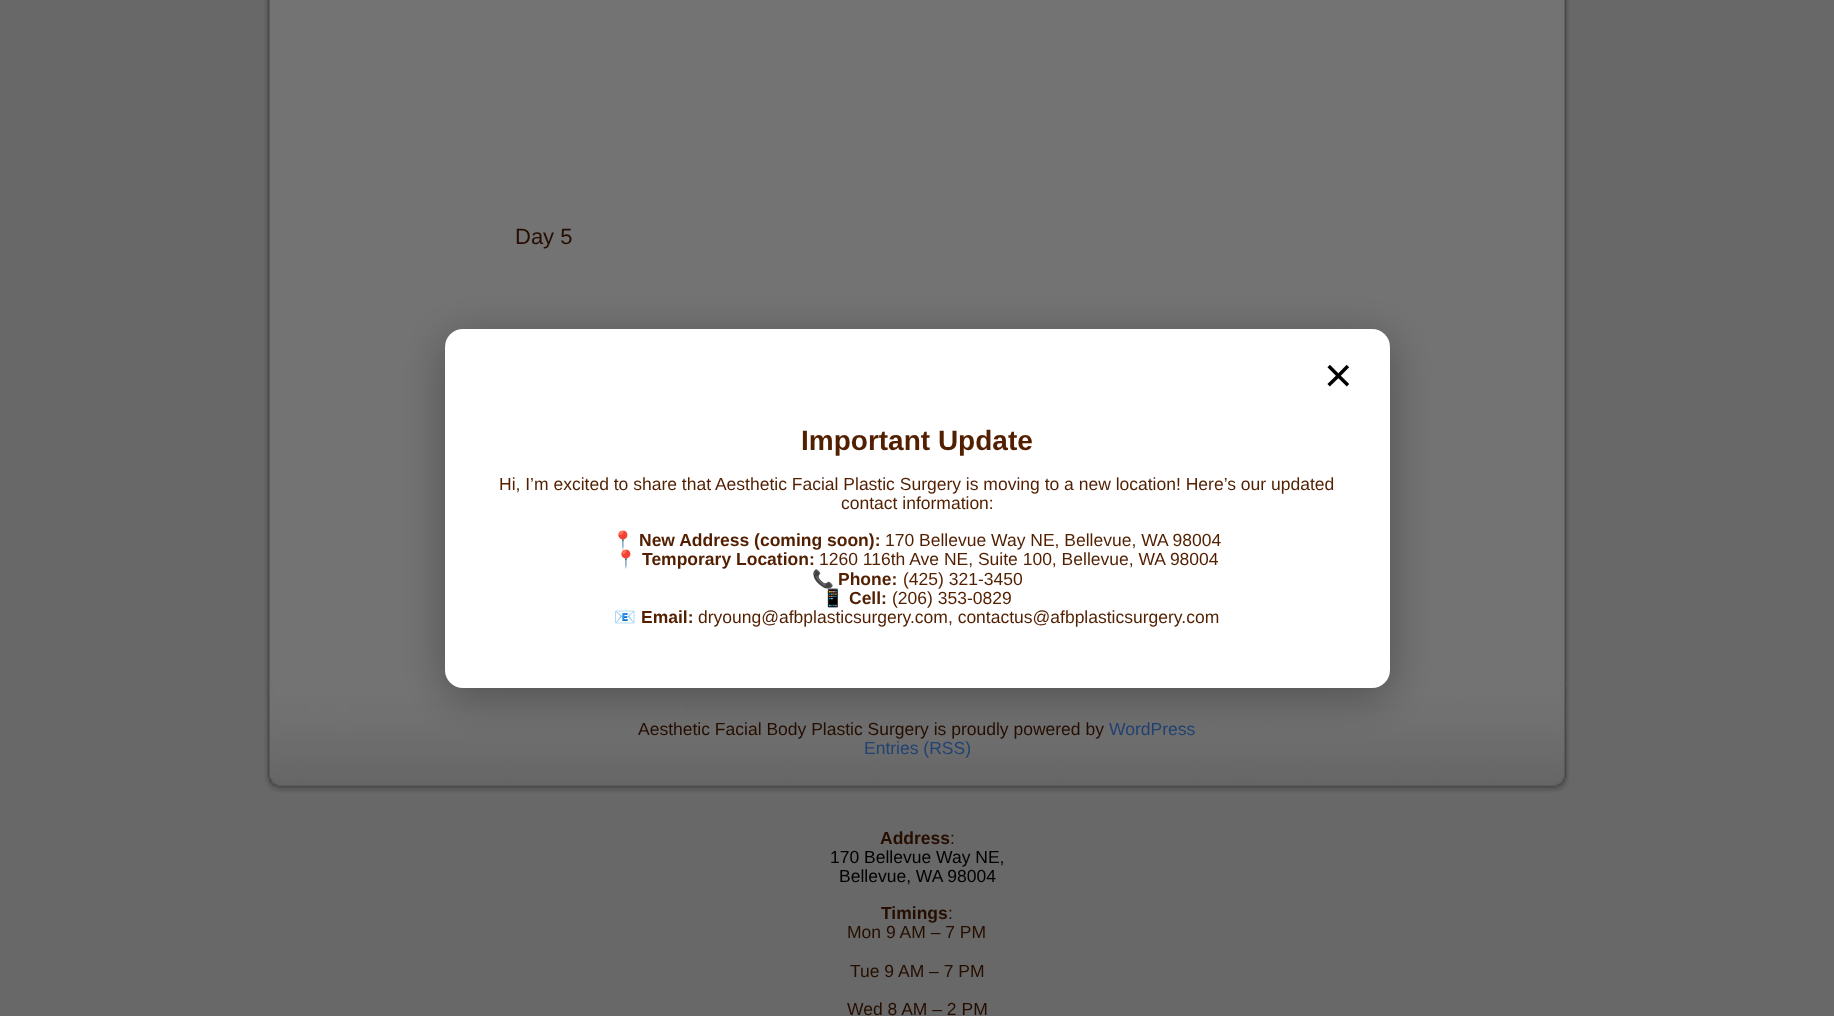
<?xml version="1.0" encoding="UTF-8"?>
<svg xmlns="http://www.w3.org/2000/svg" width="1834" height="1016">
    <defs>
        <filter id="blur1" x="-50%" y="-200%" width="200%" height="500%"><feGaussianBlur stdDeviation="22"/></filter>
    </defs>
    <rect width="100%" height="100%" fill="#686868"/>
    <image x="264" y="0" width="1306" height="684" href="img_01.png"/>
    <text x="515" y="244" font-family="Liberation Sans" font-size="22" fill="#250E00">Day 5</text>
    <image x="264" y="684" width="1306" height="109" href="img_02.png"/>
    <text x="638" y="735" font-family="Liberation Sans" font-size="17.5" fill="#250E00">Aesthetic Facial Body Plastic Surgery is proudly powered by</text>
    <text x="1109" y="735" font-family="Liberation Sans" font-size="17.5" fill="#214373">WordPress</text>
    <text x="864" y="754" font-family="Liberation Sans" font-size="17.5" fill="#214373">Entries (RSS)</text>
    <rect x="445" y="338" width="945" height="359" rx="18" fill="#000000" fill-opacity="0.3" filter="url(#blur1)"/>
    <rect x="445" y="329" width="945" height="359" rx="18" fill="#FFFFFF"/>
    <text x="1324" y="392" font-family="Liberation Sans" font-size="49" fill="#000000">×</text>
    <text x="801" y="450" font-family="Liberation Sans" font-size="28" font-weight="700" fill="#521F00">Important Update</text>
    <text x="499" y="490" font-family="Liberation Sans" font-size="17.5" fill="#521F00">Hi, I’m excited to share that Aesthetic Facial Plastic Surgery is moving to a new location! Here’s our updated</text>
    <text x="841" y="509" font-family="Liberation Sans" font-size="17.5" fill="#521F00">contact information:</text>
    <text x="612" y="546" font-family="Noto Color Emoji" font-size="17.5" fill="#521F00">📍</text>
    <text x="639" y="546" font-family="Liberation Sans" font-size="17.5" font-weight="700" fill="#521F00">New Address (coming soon):</text>
    <text x="885" y="546" font-family="Liberation Sans" font-size="17.5" fill="#521F00">170 Bellevue Way NE, Bellevue, WA 98004</text>
    <text x="615" y="565" font-family="Noto Color Emoji" font-size="17.5" fill="#521F00">📍</text>
    <text x="642" y="565" font-family="Liberation Sans" font-size="17.5" font-weight="700" fill="#521F00">Temporary Location:</text>
    <text x="819" y="565" font-family="Liberation Sans" font-size="17.5" fill="#521F00">1260 116th Ave NE, Suite 100, Bellevue, WA 98004</text>
    <text x="812" y="585" font-family="Noto Color Emoji" font-size="17.5" fill="#521F00">📞</text>
    <text x="838" y="585" font-family="Liberation Sans" font-size="17.5" font-weight="700" fill="#521F00">Phone:</text>
    <text x="903" y="585" font-family="Liberation Sans" font-size="17.5" fill="#521F00">(425) 321-3450</text>
    <text x="822" y="604" font-family="Noto Color Emoji" font-size="17.5" fill="#521F00">📱</text>
    <text x="849" y="604" font-family="Liberation Sans" font-size="17.5" font-weight="700" fill="#521F00">Cell:</text>
    <text x="892" y="604" font-family="Liberation Sans" font-size="17.5" fill="#521F00">(206) 353-0829</text>
    <text x="614" y="623" font-family="Noto Color Emoji" font-size="17.5" fill="#521F00">📧</text>
    <text x="641" y="623" font-family="Liberation Sans" font-size="17.5" font-weight="700" fill="#521F00">Email:</text>
    <text x="698" y="623" font-family="Liberation Sans" font-size="17.5" fill="#521F00">dryoung@afbplasticsurgery.com, contactus@afbplasticsurgery.com</text>
    <text x="880" y="844" font-family="Liberation Sans" font-size="17.5" font-weight="700" fill="#250E00">Address</text>
    <text x="950" y="844" font-family="Liberation Sans" font-size="17.5" fill="#250E00">:</text>
    <text x="830" y="863" font-family="Liberation Sans" font-size="17.5" fill="#000000">170 Bellevue Way NE,</text>
    <text x="839" y="882" font-family="Liberation Sans" font-size="17.5" fill="#000000">Bellevue, WA 98004</text>
    <text x="881" y="919" font-family="Liberation Sans" font-size="17.5" font-weight="700" fill="#250E00">Timings</text>
    <text x="948" y="919" font-family="Liberation Sans" font-size="17.5" fill="#250E00">:</text>
    <text x="847" y="938" font-family="Liberation Sans" font-size="17.5" fill="#250E00">Mon 9 AM – 7 PM</text>
    <text x="850" y="977" font-family="Liberation Sans" font-size="17.5" fill="#250E00">Tue 9 AM – 7 PM</text>
    <text x="847" y="1015" font-family="Liberation Sans" font-size="17.5" fill="#250E00">Wed 8 AM – 2 PM</text>
</svg>
